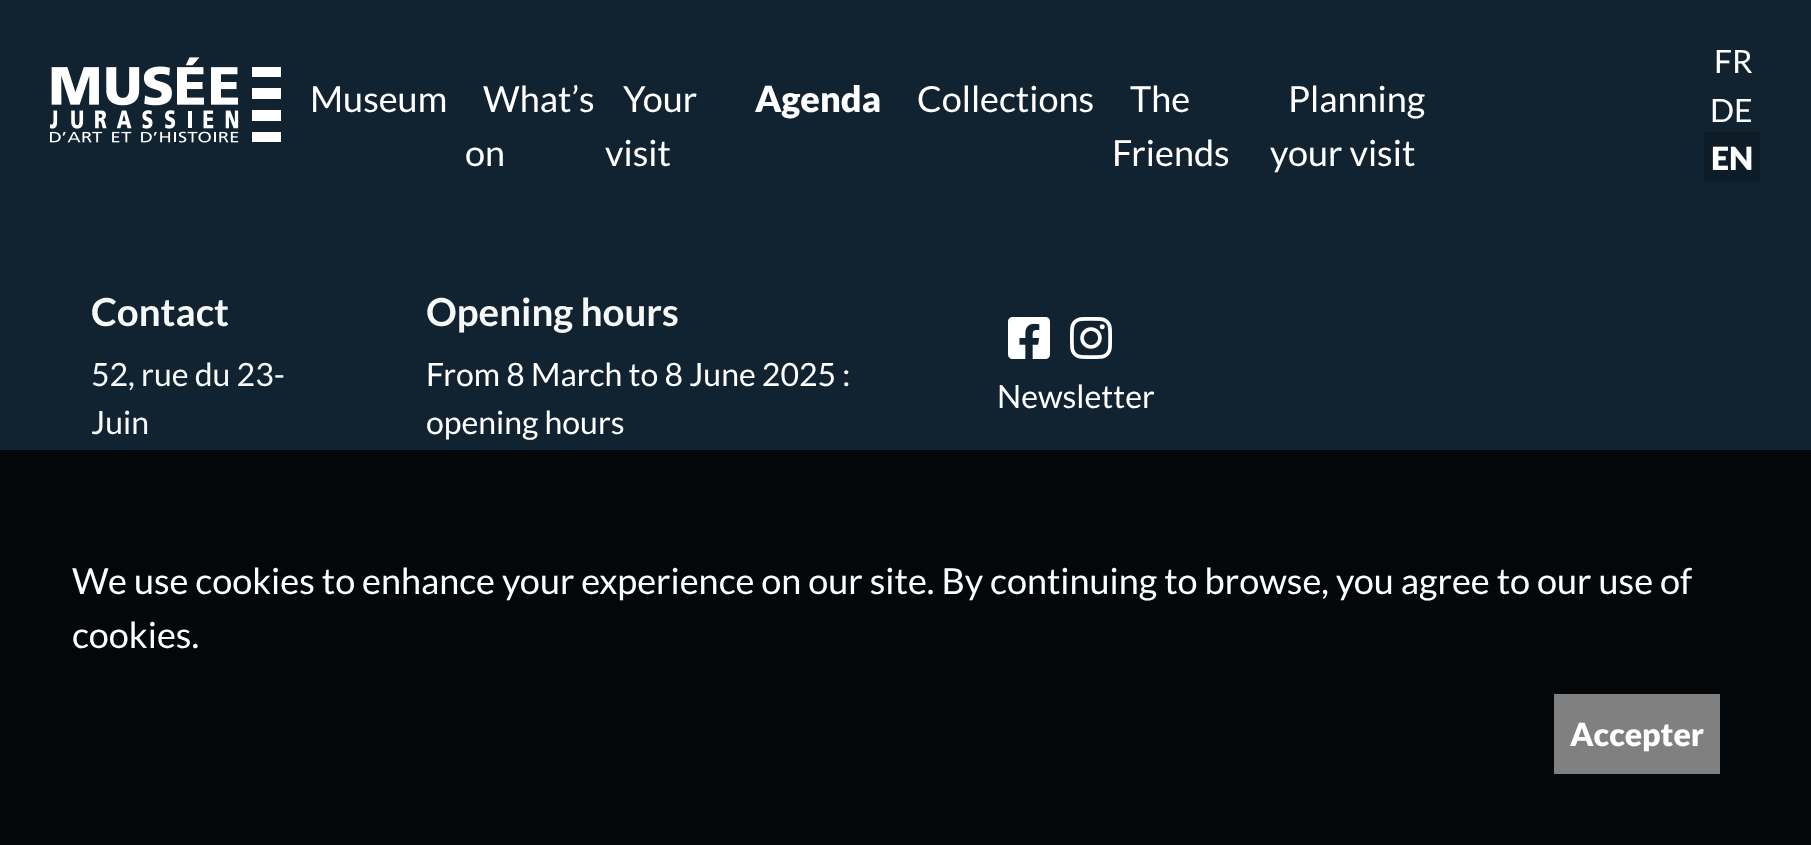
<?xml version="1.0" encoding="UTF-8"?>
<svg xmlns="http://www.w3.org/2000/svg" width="1811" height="845">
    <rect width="100%" height="100%" fill="#112331"/>
    <image x="50" y="57" width="231" height="86" href="img_01.png"/>
    <text x="310" y="112" font-family="Lato" font-size="36" fill="#FFFFFF">Museum</text>
    <text x="483" y="112" font-family="Lato" font-size="36" fill="#FFFFFF">What’s</text>
    <text x="465" y="166" font-family="Lato" font-size="36" fill="#FFFFFF">on</text>
    <text x="623" y="112" font-family="Lato" font-size="36" fill="#FFFFFF">Your</text>
    <text x="605" y="166" font-family="Lato" font-size="36" fill="#FFFFFF">visit</text>
    <text x="755" y="112" font-family="Lato" font-size="36" font-weight="900" fill="#FFFFFF">Agenda</text>
    <text x="917" y="112" font-family="Lato" font-size="36" fill="#FFFFFF">Collections</text>
    <text x="1130" y="112" font-family="Lato" font-size="36" fill="#FFFFFF">The</text>
    <text x="1112" y="166" font-family="Lato" font-size="36" fill="#FFFFFF">Friends</text>
    <text x="1288" y="112" font-family="Lato" font-size="36" fill="#FFFFFF">Planning</text>
    <text x="1270" y="166" font-family="Lato" font-size="36" fill="#FFFFFF">your visit</text>
    <text x="1714" y="73" font-family="Lato" font-size="32" fill="#FFFFFF">FR</text>
    <text x="1710" y="122" font-family="Lato" font-size="32" fill="#FFFFFF">DE</text>
    <rect x="1704" y="132" width="56" height="50" fill="#0E1C27"/>
    <text x="1711" y="170" font-family="Lato" font-size="32" font-weight="900" fill="#FFFFFF">EN</text>
    <text x="91" y="326" font-family="Lato" font-size="38.5" font-weight="700" fill="#F7F9F9">Contact</text>
    <text font-family="Lato" font-size="32" fill="#F7F9F9">
        <tspan x="91" y="386">52, rue du 23-</tspan>
        <tspan x="91" y="434">Juin</tspan>
    </text>
    <text x="426" y="326" font-family="Lato" font-size="38.5" font-weight="700" fill="#F7F9F9">Opening hours</text>
    <text font-family="Lato" font-size="32" fill="#FFFFFF">
        <tspan x="426" y="386">From 8 March to 8 June 2025 :</tspan>
        <tspan x="426" y="434">opening hours</tspan>
    </text>
    <image x="1008" y="317" width="42" height="42" href="img_02.png"/>
    <image x="1070" y="317" width="42" height="42" href="img_03.png"/>
    <text x="997" y="408" font-family="Lato" font-size="32" fill="#FFFFFF">Newsletter</text>
    <rect x="0" y="450" width="1811" height="395" fill="#000000" fill-opacity="0.8"/>
    <text font-family="Lato" font-size="36" fill="#FFFFFF">
        <tspan x="72" y="594">We use cookies to enhance your experience on our site. By continuing to browse, you agree to our use of</tspan>
        <tspan x="72" y="648">cookies.</tspan>
    </text>
    <rect x="1554" y="694" width="166" height="80" fill="#808080"/>
    <text x="1570" y="746" font-family="Lato" font-size="32" font-weight="900" fill="#FFFFFF">Accepter</text>
</svg>
